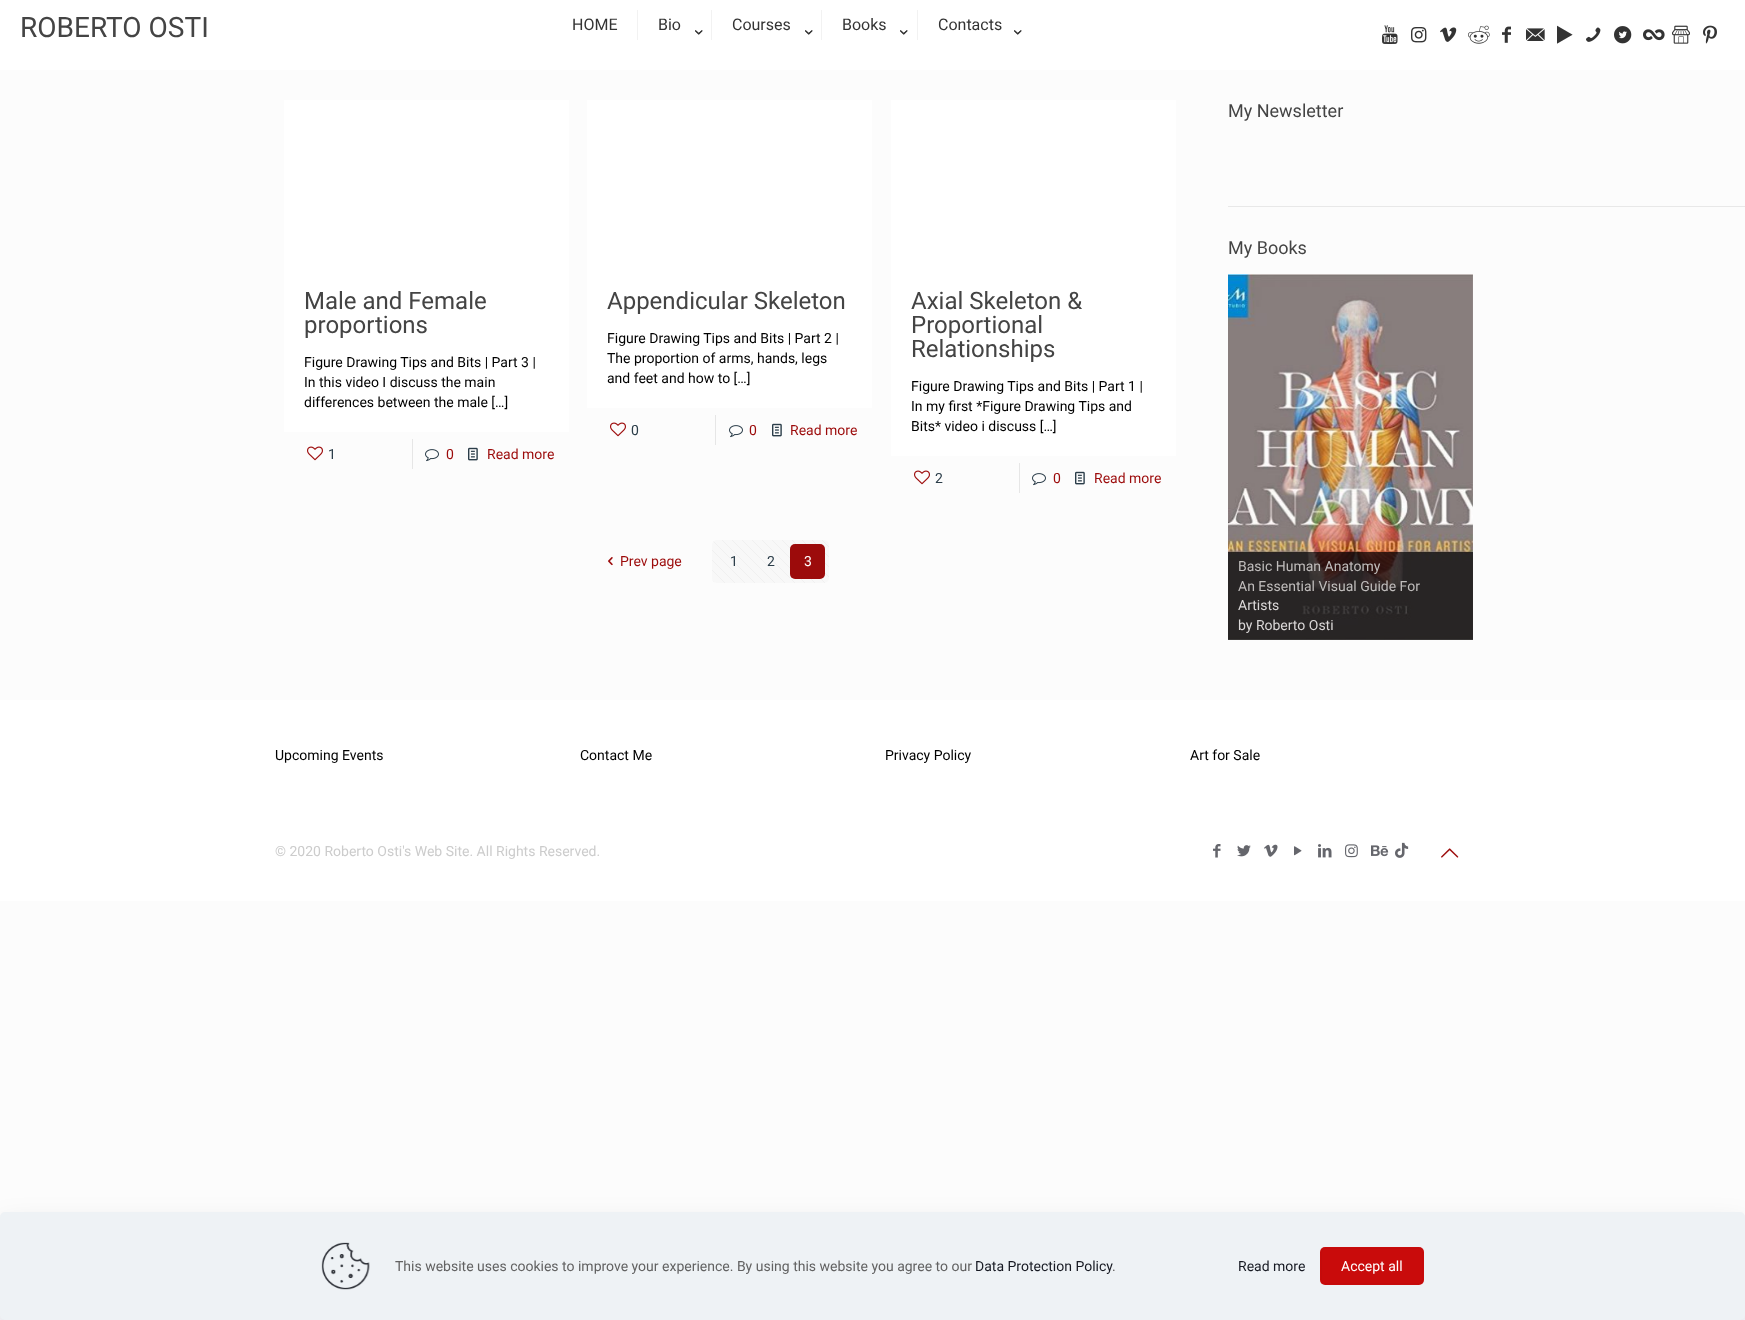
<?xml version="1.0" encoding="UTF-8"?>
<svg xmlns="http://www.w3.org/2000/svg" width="1745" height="1320">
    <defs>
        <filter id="blur1" x="-50%" y="-200%" width="200%" height="500%"><feGaussianBlur stdDeviation="15"/></filter>
    </defs>
    <rect width="100%" height="100%" fill="#FCFCFC"/>
    <rect x="0" y="0" width="1745" height="70" fill="#FFFFFF"/>
    <text x="20" y="37" font-family="Roboto" font-size="28" fill="#444444">ROBERTO OSTI</text>
    <rect x="637" y="10" width="1" height="30" fill="#F2F2F2"/>
    <text x="572" y="30" font-family="Roboto" font-size="16" fill="#333333">HOME</text>
    <rect x="711" y="10" width="1" height="30" fill="#F2F2F2"/>
    <text x="658" y="30" font-family="Roboto" font-size="16" fill="#333333">Bio</text>
    <image x="695" y="30" width="8" height="5" href="img_01.png"/>
    <image x="695" y="30" width="8" height="5" href="img_02.png"/>
    <rect x="821" y="10" width="1" height="30" fill="#F2F2F2"/>
    <text x="732" y="30" font-family="Roboto" font-size="16" fill="#333333">Courses</text>
    <image x="805" y="30" width="8" height="5" href="img_01.png"/>
    <image x="805" y="30" width="8" height="5" href="img_02.png"/>
    <rect x="917" y="10" width="1" height="30" fill="#F2F2F2"/>
    <text x="842" y="30" font-family="Roboto" font-size="16" fill="#333333">Books</text>
    <image x="900" y="30" width="8" height="5" href="img_01.png"/>
    <image x="900" y="30" width="8" height="5" href="img_02.png"/>
    <text x="938" y="30" font-family="Roboto" font-size="16" fill="#333333">Contacts</text>
    <image x="1014" y="30" width="8" height="5" href="img_01.png"/>
    <image x="1014" y="30" width="8" height="5" href="img_02.png"/>
    <image x="1382" y="25" width="16" height="19" href="img_03.png"/>
    <image x="1411" y="27" width="16" height="16" href="img_04.png"/>
    <image x="1440" y="27" width="17" height="15" href="img_05.png"/>
    <image x="1468" y="25" width="22" height="19" href="img_06.png"/>
    <image x="1502" y="26" width="9" height="17" href="img_07.png"/>
    <image x="1526" y="28" width="19" height="13" href="img_08.png"/>
    <image x="1557" y="25" width="16" height="19" href="img_09.png"/>
    <image x="1586" y="27" width="15" height="15" href="img_10.png"/>
    <image x="1614" y="26" width="18" height="18" href="img_11.png"/>
    <image x="1643" y="29" width="22" height="12" href="img_12.png"/>
    <image x="1672" y="25" width="18" height="19" href="img_13.png"/>
    <image x="1703" y="25" width="14" height="19" href="img_14.png"/>
    <rect x="284" y="100" width="285" height="332" fill="#FFFFFF"/>
    <text font-family="Roboto" font-size="24" fill="#444444">
        <tspan x="304" y="309">Male and Female</tspan>
        <tspan x="304" y="333">proportions</tspan>
    </text>
    <text font-family="Roboto" font-size="14" fill="#000000">
        <tspan x="304" y="367">Figure Drawing Tips and Bits | Part 3 |</tspan>
        <tspan x="304" y="387">In this video I discuss the main</tspan>
        <tspan x="304" y="407">differences between the male […]</tspan>
    </text>
    <image x="307" y="446" width="16" height="15" href="img_15.png"/>
    <text x="328" y="459" font-family="Roboto" font-size="14" fill="#2B3D49">1</text>
    <rect x="412" y="439" width="1" height="30" fill="#E6E6E6"/>
    <image x="425" y="449" width="14" height="13" href="img_16.png"/>
    <text x="446" y="459" font-family="Roboto" font-size="14" fill="#9C0B0B">0</text>
    <image x="468" y="447" width="10" height="14" href="img_17.png"/>
    <text x="487" y="459" font-family="Roboto" font-size="14" fill="#9C0B0B">Read more</text>
    <rect x="587" y="100" width="285" height="308" fill="#FFFFFF"/>
    <text x="607" y="309" font-family="Roboto" font-size="24" fill="#444444">Appendicular Skeleton</text>
    <text font-family="Roboto" font-size="14" fill="#000000">
        <tspan x="607" y="343">Figure Drawing Tips and Bits | Part 2 |</tspan>
        <tspan x="607" y="363">The proportion of arms, hands, legs</tspan>
        <tspan x="607" y="383">and feet and how to […]</tspan>
    </text>
    <image x="610" y="422" width="16" height="15" href="img_15.png"/>
    <text x="631" y="435" font-family="Roboto" font-size="14" fill="#2B3D49">0</text>
    <rect x="715" y="415" width="1" height="30" fill="#E6E6E6"/>
    <image x="729" y="425" width="14" height="13" href="img_16.png"/>
    <text x="749" y="435" font-family="Roboto" font-size="14" fill="#9C0B0B">0</text>
    <image x="772" y="423" width="10" height="14" href="img_17.png"/>
    <text x="790" y="435" font-family="Roboto" font-size="14" fill="#9C0B0B">Read more</text>
    <rect x="891" y="100" width="285" height="356" fill="#FFFFFF"/>
    <text font-family="Roboto" font-size="24" fill="#444444">
        <tspan x="911" y="309">Axial Skeleton &amp;</tspan>
        <tspan x="911" y="333">Proportional</tspan>
        <tspan x="911" y="357">Relationships</tspan>
    </text>
    <text font-family="Roboto" font-size="14" fill="#000000">
        <tspan x="911" y="391">Figure Drawing Tips and Bits | Part 1 |</tspan>
        <tspan x="911" y="411">In my first *Figure Drawing Tips and</tspan>
        <tspan x="911" y="431">Bits* video i discuss […]</tspan>
    </text>
    <image x="914" y="470" width="16" height="15" href="img_15.png"/>
    <text x="935" y="483" font-family="Roboto" font-size="14" fill="#2B3D49">2</text>
    <rect x="1019" y="463" width="1" height="30" fill="#E6E6E6"/>
    <image x="1032" y="473" width="14" height="13" href="img_16.png"/>
    <text x="1053" y="483" font-family="Roboto" font-size="14" fill="#9C0B0B">0</text>
    <image x="1075" y="471" width="10" height="14" href="img_17.png"/>
    <text x="1094" y="483" font-family="Roboto" font-size="14" fill="#9C0B0B">Read more</text>
    <image x="608" y="557" width="5" height="9" href="img_18.png"/>
    <text x="620" y="566" font-family="Roboto" font-size="14" fill="#9C0B0B">Prev page</text>
    <rect x="712" y="540" width="117" height="43" rx="5" fill="#F8F8F8"/>
    <image x="712" y="540" width="117" height="43" href="img_19.png"/>
    <text x="730" y="566" font-family="Roboto" font-size="14" fill="#2B3D49">1</text>
    <text x="767" y="566" font-family="Roboto" font-size="14" fill="#2B3D49">2</text>
    <rect x="790" y="544" width="35" height="35" rx="5" fill="#9C0B0B"/>
    <text x="804" y="566" font-family="Roboto" font-size="14" fill="#FFFFFF">3</text>
    <text x="1228" y="117" font-family="Roboto" font-size="18" fill="#444444">My Newsletter</text>
    <rect x="1228" y="206" width="517" height="1" fill="#E8E8E8"/>
    <text x="1228" y="254" font-family="Roboto" font-size="18" fill="#444444">My Books</text>
    <image x="1228" y="274" width="245" height="366" href="img_20.png"/>
    <rect x="1228" y="552" width="245" height="88" fill="#000000" fill-opacity="0.7"/>
    <text font-family="Roboto" font-size="14" fill="#C0BDBC">
        <tspan x="1238" y="571">Basic Human Anatomy</tspan>
        <tspan x="1238" y="591">An Essential Visual Guide For</tspan>
    </text>
    <text font-family="Roboto" font-size="14" fill="#DBD8D8">
        <tspan x="1238" y="610">Artists</tspan>
        <tspan x="1238" y="630">by Roberto Osti</tspan>
    </text>
    <rect x="0" y="700" width="1745" height="201" fill="#FFFFFF"/>
    <text x="275" y="760" font-family="Roboto" font-size="14" fill="#000000">Upcoming Events</text>
    <text x="580" y="760" font-family="Roboto" font-size="14" fill="#000000">Contact Me</text>
    <text x="885" y="760" font-family="Roboto" font-size="14" fill="#000000">Privacy Policy</text>
    <text x="1190" y="760" font-family="Roboto" font-size="14" fill="#000000">Art for Sale</text>
    <text x="275" y="856" font-family="Roboto" font-size="14" fill="#CCCCCC">© 2020 Roberto Osti's Web Site. All Rights Reserved.</text>
    <image x="1213" y="844" width="8" height="14" href="img_21.png"/>
    <image x="1237" y="845" width="14" height="12" href="img_22.png"/>
    <image x="1264" y="844" width="14" height="13" href="img_23.png"/>
    <image x="1294" y="846" width="8" height="10" href="img_24.png"/>
    <image x="1318" y="844" width="14" height="14" href="img_25.png"/>
    <image x="1345" y="844" width="13" height="14" href="img_26.png"/>
    <image x="1371" y="845" width="18" height="12" href="img_27.png"/>
    <image x="1395" y="842" width="14" height="16" href="img_28.png"/>
    <image x="1441" y="848" width="18" height="10" href="img_29.png"/>
    <rect x="0" y="1227" width="1745" height="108" rx="5" fill="#010727" fill-opacity="0.13" filter="url(#blur1)"/>
    <rect x="0" y="1212" width="1745" height="108" rx="5" fill="#EEF2F5"/>
    <image x="321" y="1242" width="49" height="48" href="img_30.png"/>
    <text x="395" y="1271" font-family="Roboto" font-size="14" fill="#626262">This website uses cookies to improve your experience. By using this website you agree to our</text>
    <text x="975" y="1271" font-family="Roboto" font-size="14" fill="#161922">Data Protection Policy</text>
    <text x="1112" y="1271" font-family="Roboto" font-size="14" fill="#626262">.</text>
    <text x="1238" y="1271" font-family="Roboto" font-size="14" fill="#161922">Read more</text>
    <rect x="1320" y="1247" width="104" height="38" rx="5" fill="#C90B0B"/>
    <rect x="1321.5" y="1248.5" width="101" height="35" rx="3.5" fill="none" stroke="#C30B0B"/>
    <text x="1341" y="1271" font-family="Roboto" font-size="14" fill="#FFFFFF">Accept all</text>
</svg>
